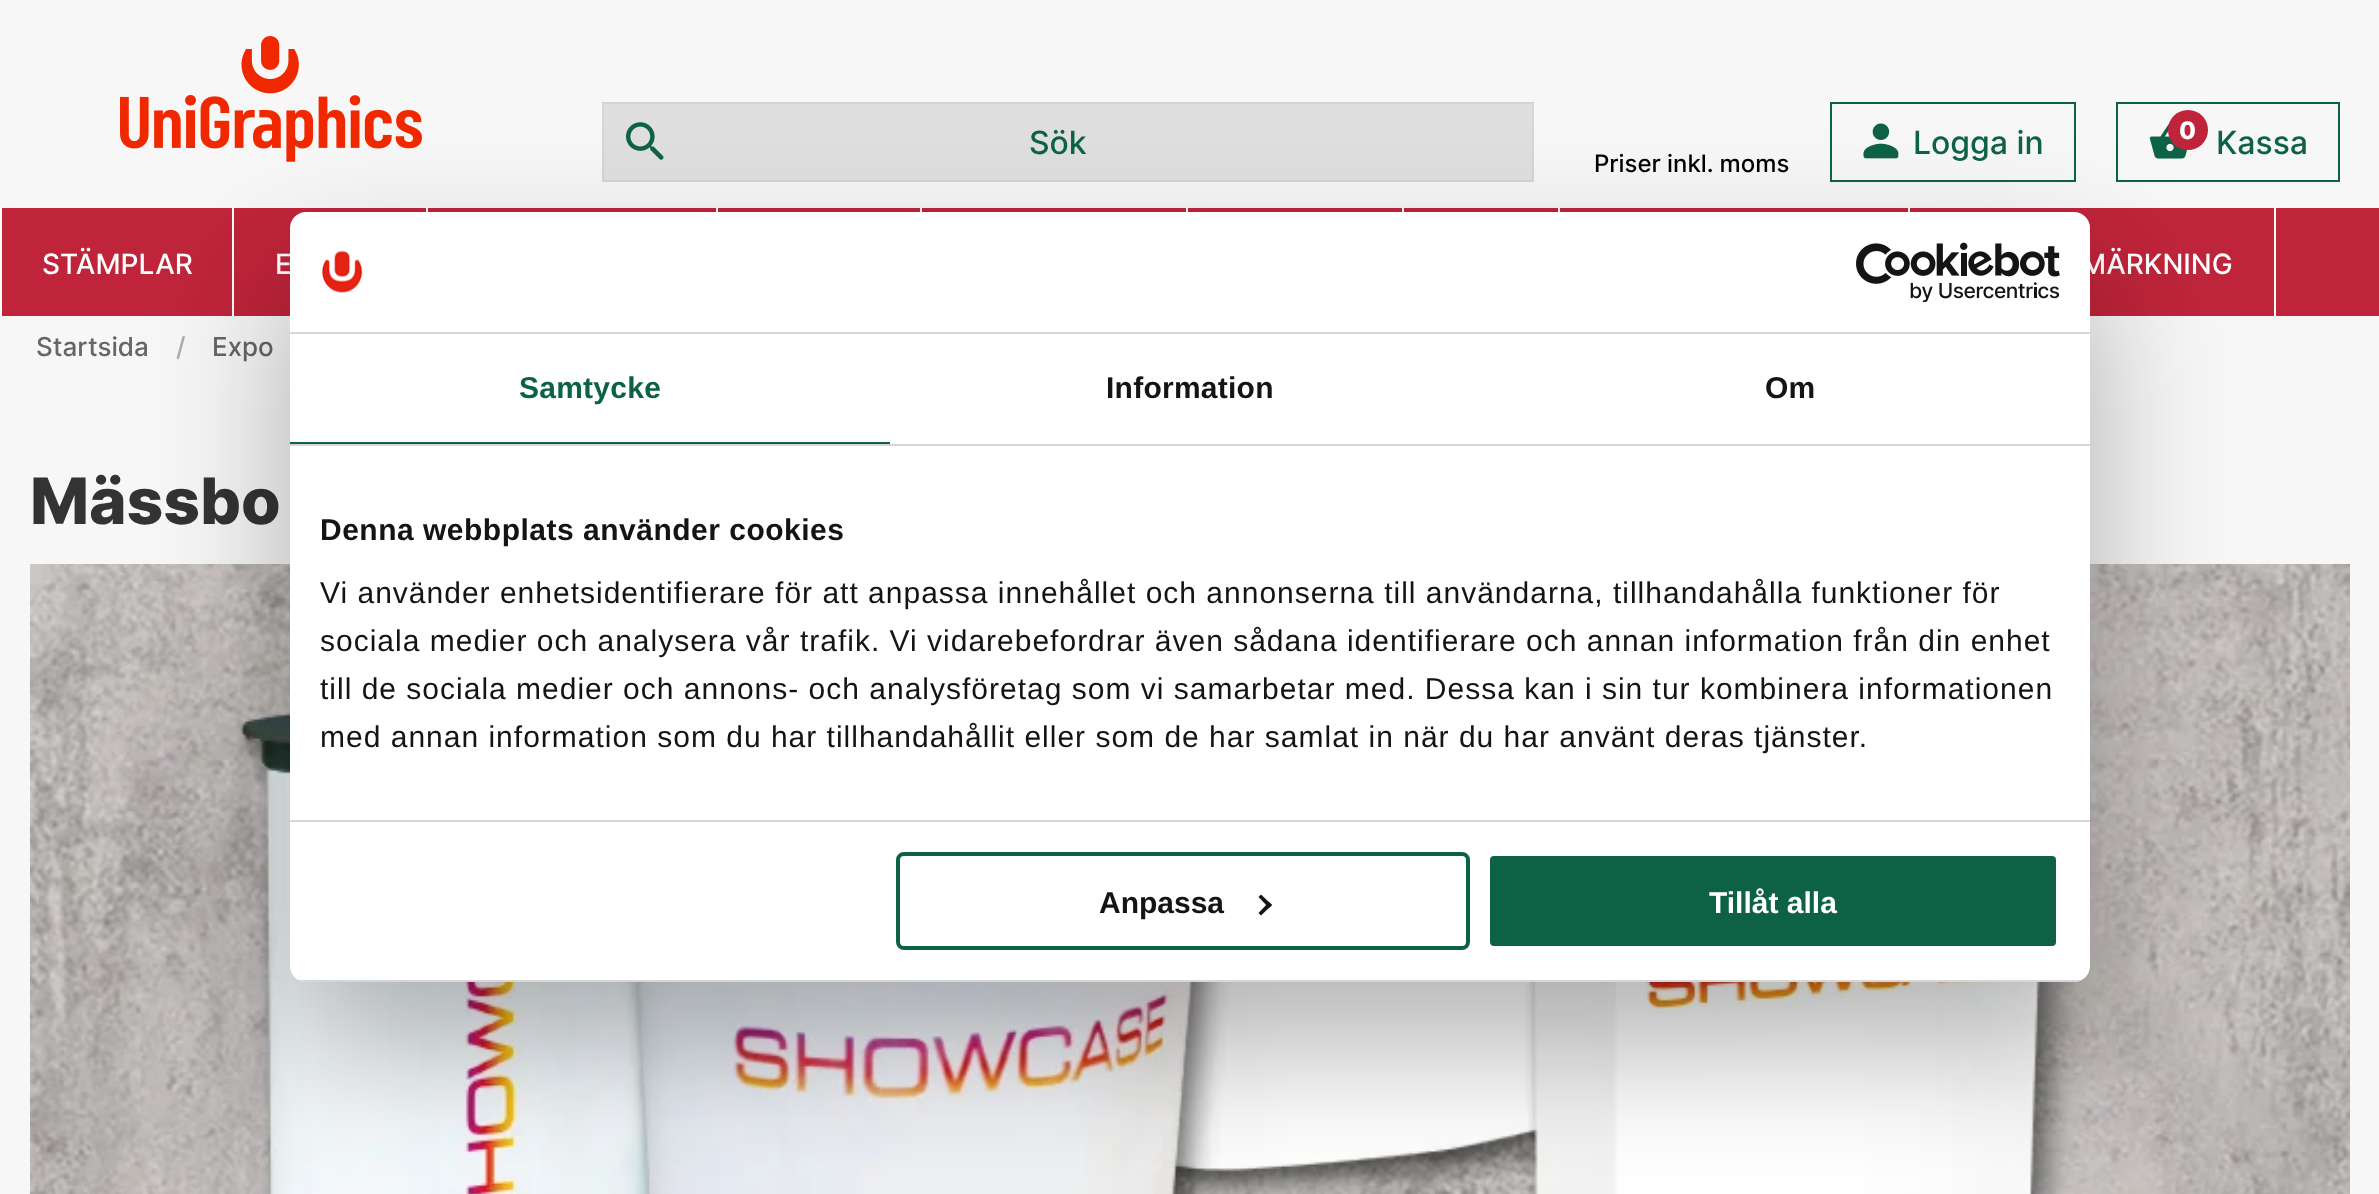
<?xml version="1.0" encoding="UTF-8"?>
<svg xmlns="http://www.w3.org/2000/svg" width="2379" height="1194">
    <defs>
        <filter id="blur1" x="-50%" y="-200%" width="200%" height="500%"><feGaussianBlur stdDeviation="68"/></filter>
        <clipPath id="clip1"><rect x="290" y="212" width="1800" height="770" rx="16"/></clipPath>
    </defs>
    <rect width="100%" height="100%" fill="#F7F7F7"/>
    <image x="120" y="36" width="302" height="126" href="img_01.png"/>
    <rect x="603" y="103" width="930" height="78" fill="#DFDFDF" stroke="#D5D5D5" stroke-width="2"/>
    <image x="626" y="122" width="38" height="38" href="img_02.png"/>
    <text x="1029" y="154" font-family="Inter" font-size="32" font-weight="500" fill="#0D6246">Sök</text>
    <rect x="1831" y="103" width="244" height="78" fill="none" stroke="#0D6246" stroke-width="2"/>
    <image x="1863" y="123" width="36" height="36" href="img_03.png"/>
    <text x="1913" y="154" font-family="Inter" font-size="32" font-weight="500" fill="#0D6246">Logga in</text>
    <rect x="2117" y="103" width="222" height="78" fill="none" stroke="#0D6246" stroke-width="2"/>
    <image x="2149" y="123" width="39" height="36" href="img_04.png"/>
    <circle cx="2188" cy="130" r="20" fill="#BF243A"/>
    <text x="2179" y="139" font-family="Inter" font-size="24" font-weight="800" fill="#FFFFFF">0</text>
    <text x="2216" y="154" font-family="Inter" font-size="32" font-weight="500" fill="#0D6246">Kassa</text>
    <text x="1594" y="172" font-family="Inter" font-size="24" font-weight="500" fill="#000000">Priser inkl. moms</text>
    <rect x="2" y="208" width="2377" height="108" fill="#BF243A"/>
    <rect x="716" y="208" width="2" height="4" fill="#FFFFFF"/>
    <rect x="920" y="208" width="2" height="4" fill="#FFFFFF"/>
    <rect x="1186" y="208" width="2" height="4" fill="#FFFFFF"/>
    <rect x="1402" y="208" width="2" height="4" fill="#FFFFFF"/>
    <rect x="1558" y="208" width="2" height="4" fill="#FFFFFF"/>
    <rect x="1908" y="208" width="2" height="4" fill="#FFFFFF"/>
    <rect x="232" y="208" width="2" height="108" fill="#FFFFFF"/>
    <rect x="0" y="208" width="2" height="108" fill="#FFFFFF"/>
    <text x="42" y="274" font-family="Inter" font-size="28" font-weight="500" fill="#FFFFFF">STÄMPLAR</text>
    <rect x="426" y="208" width="2" height="4" fill="#FFFFFF"/>
    <text x="275" y="274" font-family="Inter" font-size="28" font-weight="500" fill="#FFFFFF">E</text>
    <rect x="2274" y="208" width="2" height="108" fill="#FFFFFF"/>
    <text x="2081" y="274" font-family="Inter" font-size="28" font-weight="500" fill="#FFFFFF">MÄRKNING</text>
    <text x="36" y="356" font-family="Inter" font-size="26" font-weight="500" fill="#666666">Startsida</text>
    <text x="176" y="356" font-family="Inter" font-size="26" font-weight="500" fill="#AAAAAA">/</text>
    <text x="212" y="356" font-family="Inter" font-size="26" font-weight="500" fill="#666666">Expo</text>
    <text x="30" y="524" font-family="Inter" font-size="64" font-weight="800" fill="#333333">Mässbo</text>
    <image x="30" y="564" width="2320" height="630" href="img_05.png"/>
    <rect x="290" y="276" width="1800" height="770" rx="16" fill="#000000" fill-opacity="0.3" filter="url(#blur1)"/>
    <rect x="290" y="212" width="1800" height="770" rx="16" fill="#FFFFFF"/>
    <rect x="290" y="332" width="1800" height="2" fill="#D6D6D6"/>
    <image x="322" y="250" width="41" height="43" href="img_06.png"/>
    <image x="1856" y="242" width="204" height="60" href="img_07.png"/>
    <rect x="290" y="444" width="1800" height="2" fill="#D6D6D6"/>
    <rect x="290" y="442" width="600" height="2" fill="#0D6246"/>
    <text x="519" y="398" font-family="Liberation Sans" font-size="30" font-weight="700" letter-spacing="0.25" fill="#0D6246">Samtycke</text>
    <text x="1106" y="398" font-family="Liberation Sans" font-size="30" font-weight="700" letter-spacing="0.25" fill="#141414">Information</text>
    <text x="1765" y="398" font-family="Liberation Sans" font-size="30" font-weight="700" letter-spacing="0.25" fill="#141414">Om</text>
    <rect x="290" y="820" width="1800" height="2" fill="#D6D6D6"/>
    <text x="320" y="540" font-family="Liberation Sans" font-size="30" font-weight="700" letter-spacing="0.5" fill="#141414">Denna webbplats använder cookies</text>
    <text font-family="Liberation Sans" font-size="30" letter-spacing="1" fill="#141414">
        <tspan x="320" y="603">Vi använder enhetsidentifierare för att anpassa innehållet och annonserna till användarna, tillhandahålla funktioner för</tspan>
        <tspan x="320" y="651">sociala medier och analysera vår trafik. Vi vidarebefordrar även sådana identifierare och annan information från din enhet</tspan>
        <tspan x="320" y="699">till de sociala medier och annons- och analysföretag som vi samarbetar med. Dessa kan i sin tur kombinera informationen</tspan>
        <tspan x="320" y="747">med annan information som du har tillhandahållit eller som de har samlat in när du har använt deras tjänster.</tspan>
    </text>
    <g clip-path="url(#clip1)">
        <rect x="290" y="980" width="1800" height="2" fill="#D6D6D6"/>
    </g>
    <rect x="898" y="854" width="570" height="94" rx="6" fill="none" stroke="#0D6246" stroke-width="4"/>
    <text x="1099" y="913" font-family="Liberation Sans" font-size="30" font-weight="700" fill="#141414">Anpassa</text>
    <path d="M 1261 894.5 L 1272 905 L 1269 908 L 1258.5 897 Z" fill="#141414"/>
    <path d="M 1269 902 L 1272 905 L 1261 915.5 L 1258.5 913 Z" fill="#141414"/>
    <rect x="1488" y="854" width="570" height="94" rx="6" fill="#0D6246" stroke="#FFFFFF" stroke-width="4"/>
    <text x="1709" y="913" font-family="Liberation Sans" font-size="30" font-weight="700" fill="#FFFFFF">Tillåt alla</text>
</svg>
